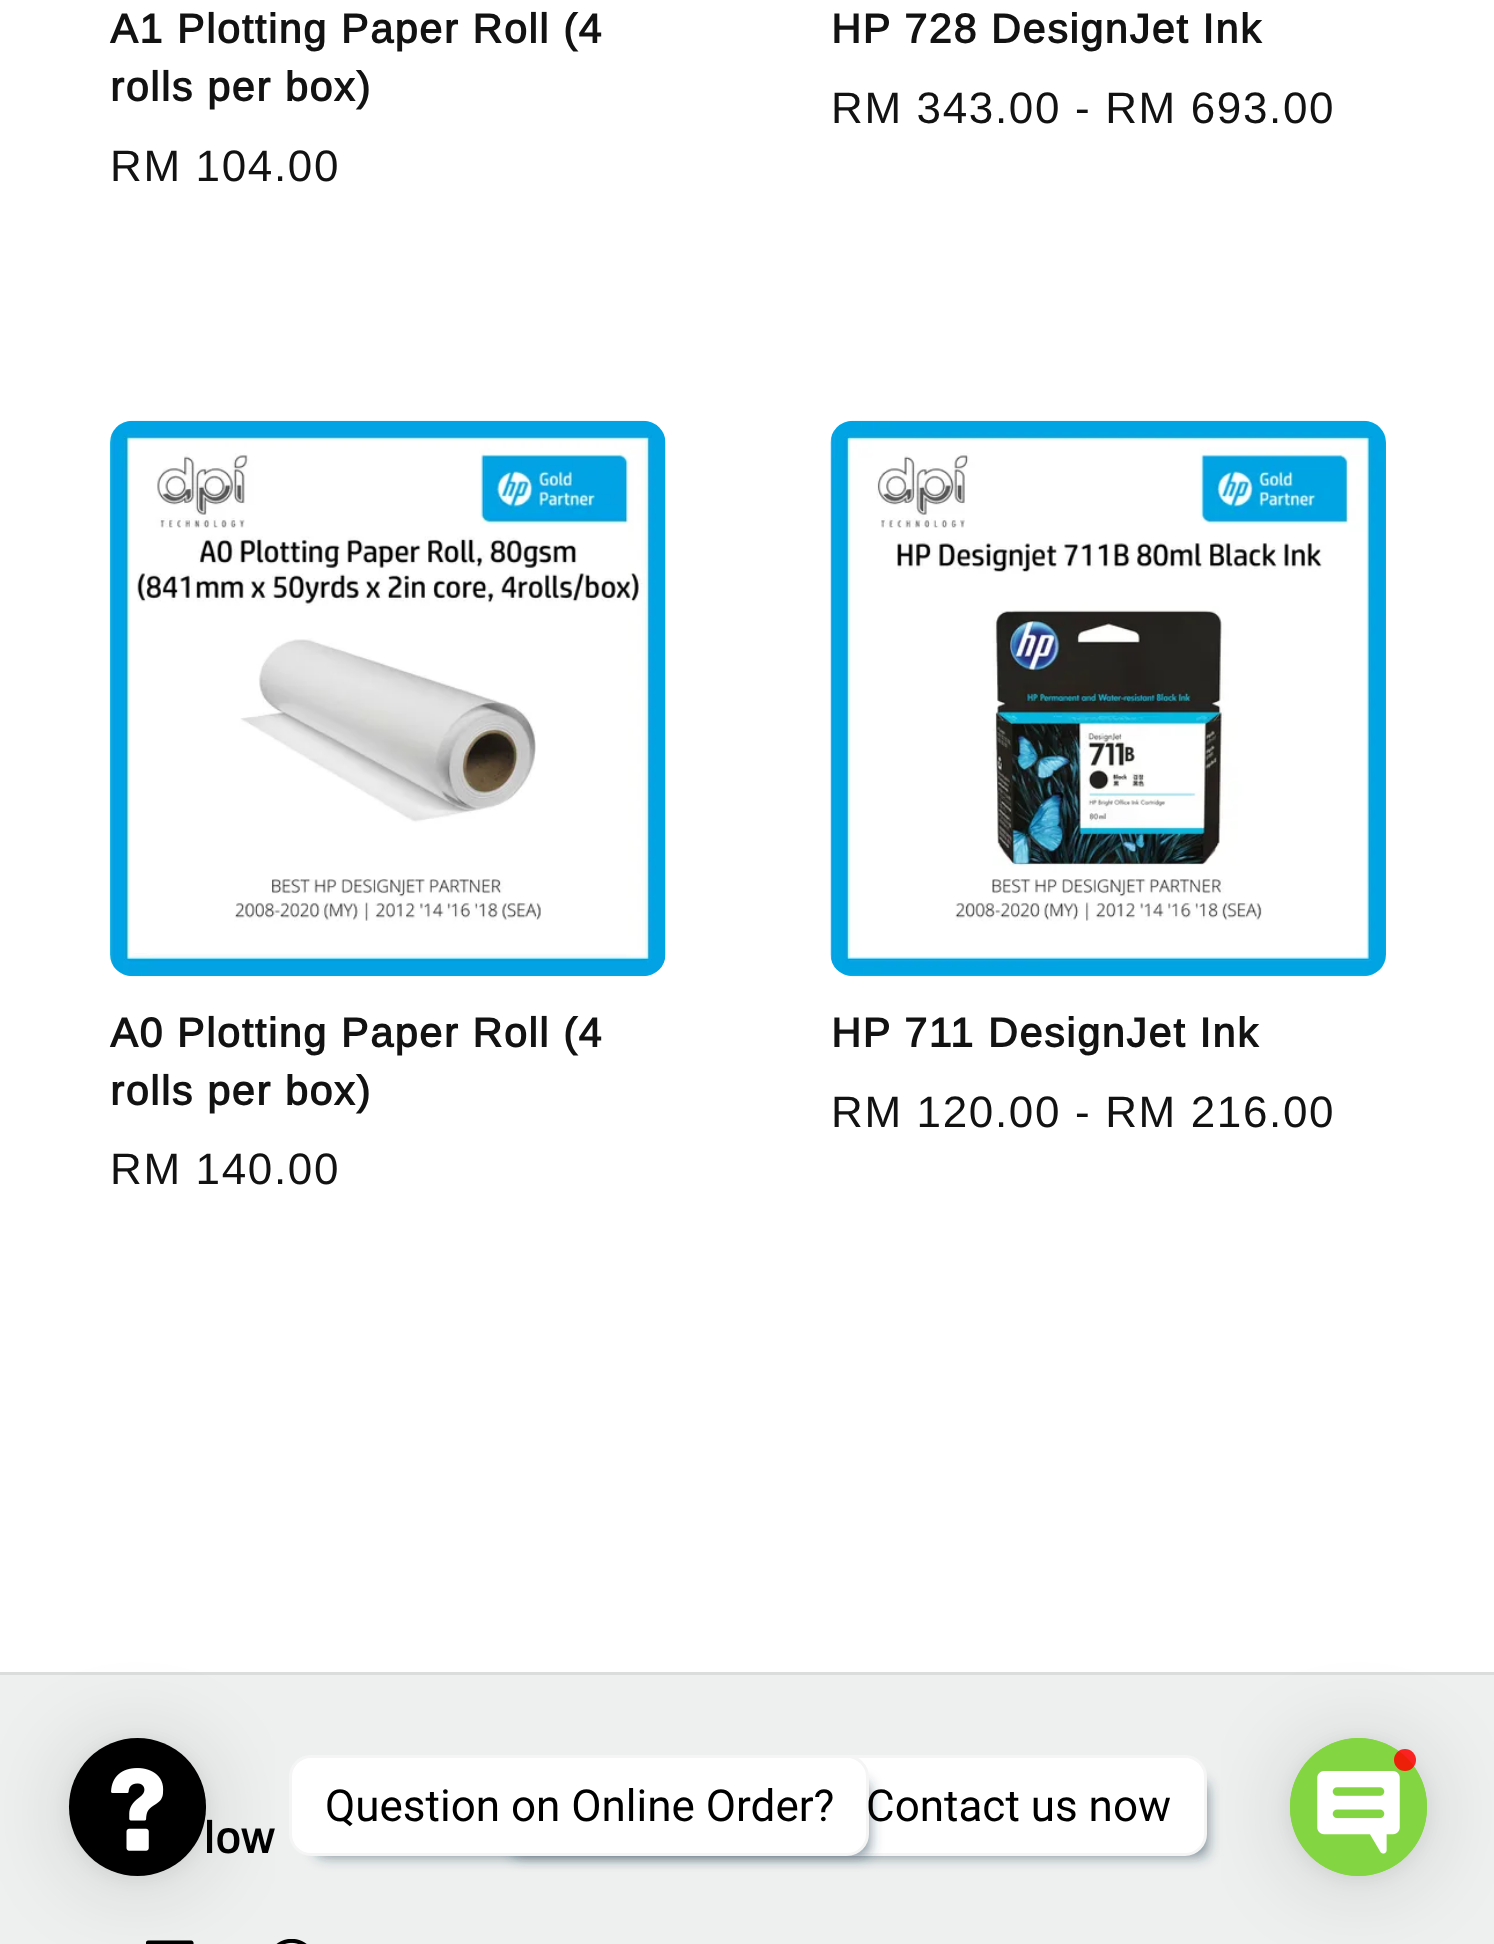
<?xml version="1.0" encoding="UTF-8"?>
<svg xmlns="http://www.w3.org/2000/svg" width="1494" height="1944">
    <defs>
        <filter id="blur1" x="-50%" y="-200%" width="200%" height="500%"><feGaussianBlur stdDeviation="44"/></filter>
        <filter id="blur2" x="-50%" y="-200%" width="200%" height="500%"><feGaussianBlur stdDeviation="8"/></filter>
        <filter id="blur3" x="-50%" y="-200%" width="200%" height="500%"><feGaussianBlur stdDeviation="7"/></filter>
    </defs>
    <rect width="100%" height="100%" fill="#FFFFFF"/>
    <text font-family="Arimo" font-size="41.25" font-weight="700" letter-spacing="1.65" fill="#121212">
        <tspan x="110" y="43">A1 Plotting Paper Roll (4</tspan>
        <tspan x="110" y="101">rolls per box)</tspan>
    </text>
    <text x="110" y="181" font-family="Arimo" font-size="44" letter-spacing="1.65" fill="#121212">RM 104.00</text>
    <text x="831" y="43" font-family="Arimo" font-size="41.25" font-weight="700" letter-spacing="1.65" fill="#121212">HP 728 DesignJet Ink</text>
    <text x="831" y="123" font-family="Arimo" font-size="44" letter-spacing="1.65" fill="#121212">RM 343.00 - RM 693.00</text>
    <image x="110" y="420" width="556" height="557" href="img_01.png"/>
    <text font-family="Arimo" font-size="41.25" font-weight="700" letter-spacing="1.65" fill="#121212">
        <tspan x="110" y="1047">A0 Plotting Paper Roll (4</tspan>
        <tspan x="110" y="1105">rolls per box)</tspan>
    </text>
    <text x="110" y="1184" font-family="Arimo" font-size="44" letter-spacing="1.65" fill="#121212">RM 140.00</text>
    <image x="830" y="420" width="556" height="557" href="img_02.png"/>
    <text x="831" y="1047" font-family="Arimo" font-size="41.25" font-weight="700" letter-spacing="1.65" fill="#121212">HP 711 DesignJet Ink</text>
    <text x="831" y="1127" font-family="Arimo" font-size="44" letter-spacing="1.65" fill="#121212">RM 120.00 - RM 216.00</text>
    <rect x="0" y="1675" width="1494" height="269" fill="#EEF0EF"/>
    <rect x="0" y="1672" width="1494" height="3" fill="#DBDDDC"/>
    <image x="146" y="1940" width="48" height="4" href="img_05.png"/>
    <image x="276" y="1939" width="31" height="5" href="img_06.png"/>
    <rect x="69" y="1744" width="137" height="137" rx="68.5" fill="#000000" fill-opacity="0.16" filter="url(#blur1)"/>
    <rect x="69" y="1741" width="137" height="137" rx="68.5" fill="#000000" fill-opacity="0.06" filter="url(#blur2)"/>
    <rect x="69" y="1738" width="137" height="138" rx="68.5" fill="#000000"/>
    <image x="111" y="1768" width="53" height="83" href="img_03.png"/>
    <rect x="512" y="1782" width="695" height="74" rx="8" fill="#223C50" fill-opacity="0.6" filter="url(#blur3)"/>
    <rect x="485.5" y="1756.5" width="720" height="98" rx="20.5" fill="#FFFFFF" stroke="#F5F5F5" stroke-width="3"/>
    <rect x="316" y="1782" width="553" height="74" rx="8" fill="#223C50" fill-opacity="0.6" filter="url(#blur3)"/>
    <rect x="290.5" y="1756.5" width="577" height="98" rx="20.5" fill="#FFFFFF" stroke="#F5F5F5" stroke-width="3"/>
    <text x="325" y="1821" font-family="Roboto" font-size="44" fill="#000000">Question on Online Order?</text>
    <text x="866" y="1821" font-family="Roboto" font-size="44" fill="#000000">Contact us now</text>
    <rect x="1290" y="1744" width="137" height="137" rx="68.5" fill="#000000" fill-opacity="0.16" filter="url(#blur1)"/>
    <rect x="1290" y="1741" width="137" height="137" rx="68.5" fill="#000000" fill-opacity="0.06" filter="url(#blur2)"/>
    <rect x="1290" y="1738" width="137" height="138" rx="68.5" fill="#83D641"/>
    <image x="1290" y="1738" width="137" height="138" href="img_04.png"/>
    <circle cx="1405" cy="1760" r="11" fill="#FF0000" fill-opacity="0.85"/>
    <text x="204" y="1853" font-family="Arimo" font-size="44" font-weight="700" letter-spacing="1.65" fill="#000000">low</text>
</svg>
